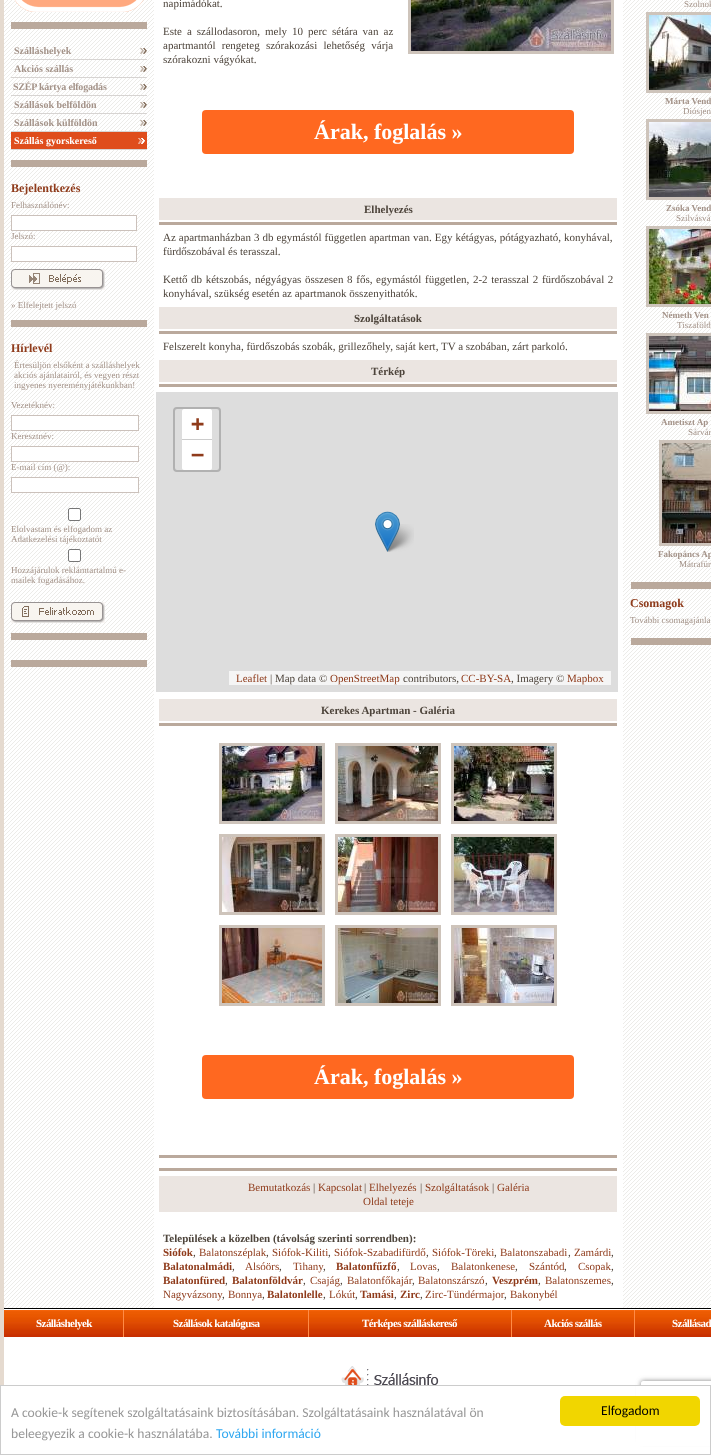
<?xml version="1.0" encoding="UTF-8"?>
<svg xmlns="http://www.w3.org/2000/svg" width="711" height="1455">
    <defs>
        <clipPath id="clip1"><path d="M 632 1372 H 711 V 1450 H 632 Z M 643 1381 H 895 C 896 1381 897 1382 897 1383 V 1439 C 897 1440 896 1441 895 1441 H 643 C 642 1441 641 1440 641 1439 V 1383 C 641 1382 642 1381 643 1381 Z" clip-rule="evenodd"/></clipPath>
        <filter id="blur1" x="-50%" y="-200%" width="200%" height="500%"><feGaussianBlur stdDeviation="2.5"/></filter>
    </defs>
    <rect width="100%" height="100%" fill="#FFFFFF"/>
    <rect x="0" y="0" width="4" height="1385" fill="#E5DACF"/>
    <rect x="4" y="1308" width="707" height="1" fill="#000000"/>
    <image x="4" y="0" width="150" height="1308" href="img_01.png"/>
    <image x="14" y="0" width="130" height="12" href="img_02.png"/>
    <rect x="11" y="22" width="136" height="7" fill="#BAA99C"/>
    <image x="140" y="48" width="7" height="6" href="img_03.png"/>
    <rect x="11" y="59" width="136" height="1" fill="#D7D4D2"/>
    <text x="14" y="54" font-family="Liberation Serif" font-size="10" font-weight="700" fill="#A49389">Szálláshelyek</text>
    <image x="140" y="66" width="7" height="6" href="img_03.png"/>
    <rect x="11" y="77" width="136" height="1" fill="#D7D4D2"/>
    <text x="14" y="72" font-family="Liberation Serif" font-size="10" font-weight="700" fill="#A49389">Akciós szállás</text>
    <image x="140" y="84" width="7" height="6" href="img_03.png"/>
    <rect x="11" y="95" width="136" height="1" fill="#D7D4D2"/>
    <text x="13" y="90" font-family="Liberation Serif" font-size="10" font-weight="700" letter-spacing="-0.2" fill="#A49389">SZÉP kártya elfogadás</text>
    <image x="140" y="102" width="7" height="6" href="img_03.png"/>
    <rect x="11" y="113" width="136" height="1" fill="#D7D4D2"/>
    <text x="14" y="108" font-family="Liberation Serif" font-size="10" font-weight="700" fill="#A49389">Szállások belföldön</text>
    <image x="140" y="120" width="7" height="6" href="img_03.png"/>
    <rect x="11" y="131" width="136" height="1" fill="#D7D4D2"/>
    <text x="14" y="126" font-family="Liberation Serif" font-size="10" font-weight="700" fill="#A49389">Szállások külföldön</text>
    <rect x="11" y="149" width="136" height="1" fill="#D7D4D2"/>
    <rect x="11" y="132" width="136" height="17" fill="#DF4D1C"/>
    <image x="138" y="138" width="7" height="6" href="img_04.png"/>
    <text x="14" y="144" font-family="Liberation Serif" font-size="10" font-weight="700" fill="#FFFFFF">Szállás gyorskereső</text>
    <rect x="11" y="160" width="136" height="7" fill="#BAA99C"/>
    <text x="11" y="192" font-family="Liberation Serif" font-size="12" font-weight="700" fill="#8F3B1B">Bejelentkezés</text>
    <text x="11" y="208" font-family="Liberation Serif" font-size="9" fill="#A49389">Felhasználónév:</text>
    <rect x="11.5" y="215.5" width="125" height="15" fill="#FFFFFF" stroke="#CBC1BB"/>
    <text x="11" y="239" font-family="Liberation Serif" font-size="9" fill="#A49389">Jelszó:</text>
    <rect x="11.5" y="246.5" width="125" height="15" fill="#FFFFFF" stroke="#CBC1BB"/>
    <image x="11" y="269" width="94" height="21" href="img_05.png"/>
    <text x="11" y="308" font-family="Liberation Serif" font-size="9" fill="#A49389">» Elfelejtett jelszó</text>
    <rect x="11" y="320" width="136" height="7" fill="#BAA99C"/>
    <text x="11" y="352" font-family="Liberation Serif" font-size="12" font-weight="700" fill="#8F3B1B">Hírlevél</text>
    <text font-family="Liberation Serif" font-size="9" fill="#A49389">
        <tspan x="14" y="368">Értesüljön elsőként a szálláshelyek</tspan>
        <tspan x="14" y="378">akciós ajánlatairól, és vegyen részt</tspan>
        <tspan x="14" y="388">ingyenes nyereményjátékunkban!</tspan>
    </text>
    <text x="11" y="408" font-family="Liberation Serif" font-size="9" fill="#A49389">Vezetéknév:</text>
    <rect x="11.5" y="415.5" width="127" height="15" fill="#FFFFFF" stroke="#CBC1BB"/>
    <text x="11" y="439" font-family="Liberation Serif" font-size="9" fill="#A49389">Keresztnév:</text>
    <rect x="11.5" y="446.5" width="127" height="15" fill="#FFFFFF" stroke="#CBC1BB"/>
    <text x="11" y="470" font-family="Liberation Serif" font-size="9" fill="#A49389">E-mail cím (@):</text>
    <rect x="11.5" y="477.5" width="127" height="15" fill="#FFFFFF" stroke="#CBC1BB"/>
    <rect x="68.5" y="508.5" width="12" height="12" rx="1.5" fill="#FFFFFF" stroke="#767676"/>
    <text font-family="Liberation Serif" font-size="9" fill="#A49389">
        <tspan x="11" y="532">Elolvastam és elfogadom az</tspan>
        <tspan x="11" y="542">Adatkezelési tájékoztatót</tspan>
    </text>
    <rect x="68.5" y="549.5" width="12" height="12" rx="1.5" fill="#FFFFFF" stroke="#767676"/>
    <text font-family="Liberation Serif" font-size="9" fill="#A49389">
        <tspan x="11" y="573">Hozzájárulok reklámtartalmú e-</tspan>
        <tspan x="11" y="583">mailek fogadásához.</tspan>
    </text>
    <image x="11" y="602" width="94" height="21" href="img_06.png"/>
    <rect x="11" y="633" width="136" height="7" fill="#BAA99C"/>
    <rect x="11" y="660" width="136" height="7" fill="#BAA99C"/>
    <text x="163" y="7" font-family="Liberation Serif" font-size="11" fill="#4D443B">napimádókat.</text>
    <rect x="409.5" y="-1.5" width="203" height="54" fill="none" stroke="#CEC4BB" stroke-width="3"/>
    <image x="411" y="0" width="200" height="51" href="img_07.png"/>
    <text font-family="Liberation Serif" font-size="11" fill="#4D443B">
        <tspan x="163" y="35" word-spacing="2.25">Este a szállodasoron, mely 10 perc sétára van az</tspan>
        <tspan x="163" y="49" word-spacing="3.5">apartmantól rengeteg szórakozási lehetőség várja</tspan>
        <tspan x="163" y="63">szórakozni vágyókat.</tspan>
    </text>
    <rect x="202" y="110" width="372" height="44" rx="4" fill="#FF6820"/>
    <text x="314" y="139" font-family="Liberation Serif" font-size="22" font-weight="700" fill="#FFFFFF">Árak, foglalás »</text>
    <rect x="159" y="198" width="458" height="22" fill="#EBE5E1"/>
    <text x="364" y="213" font-family="Liberation Serif" font-size="11" font-weight="700" fill="#4D443B">Elhelyezés</text>
    <rect x="159" y="222" width="458" height="3" fill="#BAA99C"/>
    <text font-family="Liberation Serif" font-size="11" fill="#4D443B">
        <tspan x="163" y="241" word-spacing="0.25">Az apartmanházban 3 db egymástól független apartman van. Egy kétágyas, pótágyazható, konyhával,</tspan>
        <tspan x="163" y="255">fürdőszobával és terasszal.</tspan>
    </text>
    <text font-family="Liberation Serif" font-size="11" fill="#4D443B">
        <tspan x="163" y="283" word-spacing="0.9">Kettő db kétszobás, négyágyas összesen 8 fős, egymástól független, 2-2 terasszal 2 fürdőszobával 2</tspan>
        <tspan x="163" y="297">konyhával, szükség esetén az apartmanok összenyithatók.</tspan>
    </text>
    <rect x="159" y="307" width="458" height="22" fill="#EBE5E1"/>
    <text x="354" y="322" font-family="Liberation Serif" font-size="11" font-weight="700" fill="#4D443B">Szolgáltatások</text>
    <rect x="159" y="331" width="458" height="3" fill="#BAA99C"/>
    <text x="163" y="350" font-family="Liberation Serif" font-size="11" fill="#4D443B">Felszerelt konyha, fürdőszobás szobák, grillezőhely, saját kert, TV a szobában, zárt parkoló.</text>
    <rect x="159" y="360" width="458" height="22" fill="#EBE5E1"/>
    <text x="371" y="375" font-family="Liberation Serif" font-size="11" font-weight="700" fill="#4D443B">Térkép</text>
    <rect x="159" y="384" width="458" height="3" fill="#BAA99C"/>
    <rect x="156" y="392" width="462" height="300" fill="#DDDDDD"/>
    <rect x="174" y="408" width="46" height="63" rx="3" fill="none" stroke="#B1B1B1" stroke-width="2"/>
    <path d="M 184 409 H 210 C 211 409 212 410 212 411 V 440 H 182 V 411 C 182 410 183 409 184 409 Z" fill="#FFFFFF"/>
    <rect x="182" y="439" width="30" height="1" fill="#CCCCCC"/>
    <text x="191" y="431" font-family="DejaVu Sans Mono" font-size="22" font-weight="700" fill="#8F3B1B">+</text>
    <path d="M 182 440 H 212 V 468 C 212 469 211 470 210 470 H 184 C 183 470 182 469 182 468 Z" fill="#FFFFFF"/>
    <text x="191" y="462" font-family="DejaVu Sans Mono" font-size="22" font-weight="700" fill="#8F3B1B">−</text>
    <rect x="229" y="671" width="382" height="14" fill="#F5F5F5"/>
    <text x="236" y="682" font-family="Liberation Serif" font-size="11" fill="#8F3B1B">Leaflet</text>
    <text x="270" y="682" font-family="Liberation Serif" font-size="11" fill="#4D443B">| Map data ©</text>
    <text x="330" y="682" font-family="Liberation Serif" font-size="11" fill="#8F3B1B">OpenStreetMap</text>
    <text x="403" y="682" font-family="Liberation Serif" font-size="11" fill="#4D443B">contributors,</text>
    <text x="461" y="682" font-family="Liberation Serif" font-size="11" fill="#8F3B1B">CC-BY-SA</text>
    <text x="511" y="682" font-family="Liberation Serif" font-size="11" fill="#4D443B">, Imagery ©</text>
    <text x="567" y="682" font-family="Liberation Serif" font-size="11" fill="#8F3B1B">Mapbox</text>
    <image x="385" y="524" width="29" height="28" href="img_09.png"/>
    <image x="375" y="511" width="25" height="41" href="img_08.png"/>
    <rect x="159" y="699" width="458" height="22" fill="#EBE5E1"/>
    <text x="321" y="714" font-family="Liberation Serif" font-size="11" font-weight="700" fill="#4D443B">Kerekes Apartman - Galéria</text>
    <rect x="159" y="723" width="458" height="3" fill="#BAA99C"/>
    <rect x="220.5" y="744.5" width="103" height="78" fill="none" stroke="#CEC4BB" stroke-width="3"/>
    <image x="222" y="746" width="100" height="75" href="img_10.png"/>
    <rect x="336.5" y="744.5" width="103" height="78" fill="none" stroke="#CEC4BB" stroke-width="3"/>
    <image x="338" y="746" width="100" height="75" href="img_11.png"/>
    <rect x="452.5" y="744.5" width="103" height="78" fill="none" stroke="#CEC4BB" stroke-width="3"/>
    <image x="454" y="746" width="100" height="75" href="img_12.png"/>
    <rect x="220.5" y="835.5" width="103" height="78" fill="none" stroke="#CEC4BB" stroke-width="3"/>
    <image x="222" y="837" width="100" height="75" href="img_13.png"/>
    <rect x="336.5" y="835.5" width="103" height="78" fill="none" stroke="#CEC4BB" stroke-width="3"/>
    <image x="338" y="837" width="100" height="75" href="img_14.png"/>
    <rect x="452.5" y="835.5" width="103" height="78" fill="none" stroke="#CEC4BB" stroke-width="3"/>
    <image x="454" y="837" width="100" height="75" href="img_15.png"/>
    <rect x="220.5" y="926.5" width="103" height="78" fill="none" stroke="#CEC4BB" stroke-width="3"/>
    <image x="222" y="928" width="100" height="75" href="img_16.png"/>
    <rect x="336.5" y="926.5" width="103" height="78" fill="none" stroke="#CEC4BB" stroke-width="3"/>
    <image x="338" y="928" width="100" height="75" href="img_17.png"/>
    <rect x="452.5" y="926.5" width="103" height="78" fill="none" stroke="#CEC4BB" stroke-width="3"/>
    <image x="454" y="928" width="100" height="75" href="img_18.png"/>
    <rect x="202" y="1055" width="372" height="44" rx="4" fill="#FF6820"/>
    <text x="314" y="1084" font-family="Liberation Serif" font-size="22" font-weight="700" fill="#FFFFFF">Árak, foglalás »</text>
    <rect x="159" y="1155" width="458" height="3" fill="#BAA99C"/>
    <rect x="159" y="1168" width="458" height="3" fill="#BAA99C"/>
    <rect x="159" y="1176" width="458" height="36" fill="#EBE5E1"/>
    <text x="248" y="1191" font-family="Liberation Serif" font-size="11" fill="#8F3B1B">Bemutatkozás</text>
    <text x="313" y="1191" font-family="Liberation Serif" font-size="11" fill="#4D443B">|</text>
    <text x="318" y="1191" font-family="Liberation Serif" font-size="11" fill="#8F3B1B">Kapcsolat</text>
    <text x="364" y="1191" font-family="Liberation Serif" font-size="11" fill="#4D443B">|</text>
    <text x="369" y="1191" font-family="Liberation Serif" font-size="11" fill="#8F3B1B">Elhelyezés</text>
    <text x="420" y="1191" font-family="Liberation Serif" font-size="11" fill="#4D443B">|</text>
    <text x="425" y="1191" font-family="Liberation Serif" font-size="11" fill="#8F3B1B">Szolgáltatások</text>
    <text x="492" y="1191" font-family="Liberation Serif" font-size="11" fill="#4D443B">|</text>
    <text x="497" y="1191" font-family="Liberation Serif" font-size="11" fill="#8F3B1B">Galéria</text>
    <text x="363" y="1205" font-family="Liberation Serif" font-size="11" fill="#8F3B1B">Oldal teteje</text>
    <text x="163" y="1242" font-family="Liberation Serif" font-size="11" font-weight="700" fill="#4D443B">Települések a közelben (távolság szerinti sorrendben):</text>
    <text x="163" y="1256" font-family="Liberation Serif" font-size="11" font-weight="700" fill="#8F3B1B">Siófok</text>
    <text x="193" y="1256" font-family="Liberation Serif" font-size="11" fill="#4D443B">,</text>
    <text x="199" y="1256" font-family="Liberation Serif" font-size="11" fill="#8F3B1B">Balatonszéplak</text>
    <text x="266" y="1256" font-family="Liberation Serif" font-size="11" fill="#4D443B">,</text>
    <text x="272" y="1256" font-family="Liberation Serif" font-size="11" fill="#8F3B1B">Siófok-Kiliti</text>
    <text x="328" y="1256" font-family="Liberation Serif" font-size="11" fill="#4D443B">,</text>
    <text x="334" y="1256" font-family="Liberation Serif" font-size="11" fill="#8F3B1B">Siófok-Szabadifürdő</text>
    <text x="426" y="1256" font-family="Liberation Serif" font-size="11" fill="#4D443B">,</text>
    <text x="432" y="1256" font-family="Liberation Serif" font-size="11" fill="#8F3B1B">Siófok-Töreki</text>
    <text x="494" y="1256" font-family="Liberation Serif" font-size="11" fill="#4D443B">,</text>
    <text x="500" y="1256" font-family="Liberation Serif" font-size="11" fill="#8F3B1B">Balatonszabadi</text>
    <text x="568" y="1256" font-family="Liberation Serif" font-size="11" fill="#4D443B">,</text>
    <text x="574" y="1256" font-family="Liberation Serif" font-size="11" fill="#8F3B1B">Zamárdi</text>
    <text x="611" y="1256" font-family="Liberation Serif" font-size="11" fill="#4D443B">,</text>
    <text x="163" y="1270" font-family="Liberation Serif" font-size="11" font-weight="700" fill="#8F3B1B">Balatonalmádi</text>
    <text x="232" y="1270" font-family="Liberation Serif" font-size="11" fill="#4D443B">,</text>
    <text x="245" y="1270" font-family="Liberation Serif" font-size="11" fill="#8F3B1B">Alsóörs</text>
    <text x="279" y="1270" font-family="Liberation Serif" font-size="11" fill="#4D443B">,</text>
    <text x="293" y="1270" font-family="Liberation Serif" font-size="11" fill="#8F3B1B">Tihany</text>
    <text x="336" y="1270" font-family="Liberation Serif" font-size="11" font-weight="700" fill="#8F3B1B">Balatonfűzfő</text>
    <text x="410" y="1270" font-family="Liberation Serif" font-size="11" fill="#8F3B1B">Lovas</text>
    <text x="451" y="1270" font-family="Liberation Serif" font-size="11" fill="#8F3B1B">Balatonkenese</text>
    <text x="529" y="1270" font-family="Liberation Serif" font-size="11" fill="#8F3B1B">Szántód</text>
    <text x="578" y="1270" font-family="Liberation Serif" font-size="11" fill="#8F3B1B">Csopak</text>
    <text x="323" y="1270" font-family="Liberation Serif" font-size="11" fill="#4D443B">,</text>
    <text x="397" y="1270" font-family="Liberation Serif" font-size="11" fill="#4D443B">,</text>
    <text x="437" y="1270" font-family="Liberation Serif" font-size="11" fill="#4D443B">,</text>
    <text x="515" y="1270" font-family="Liberation Serif" font-size="11" fill="#4D443B">,</text>
    <text x="564" y="1270" font-family="Liberation Serif" font-size="11" fill="#4D443B">,</text>
    <text x="611" y="1270" font-family="Liberation Serif" font-size="11" fill="#4D443B">,</text>
    <text x="163" y="1284" font-family="Liberation Serif" font-size="11" font-weight="700" fill="#8F3B1B">Balatonfüred</text>
    <text x="225" y="1284" font-family="Liberation Serif" font-size="11" fill="#4D443B">,</text>
    <text x="232" y="1284" font-family="Liberation Serif" font-size="11" font-weight="700" fill="#8F3B1B">Balatonföldvár</text>
    <text x="303" y="1284" font-family="Liberation Serif" font-size="11" fill="#4D443B">,</text>
    <text x="310" y="1284" font-family="Liberation Serif" font-size="11" fill="#8F3B1B">Csajág</text>
    <text x="340" y="1284" font-family="Liberation Serif" font-size="11" fill="#4D443B">,</text>
    <text x="347" y="1284" font-family="Liberation Serif" font-size="11" fill="#8F3B1B">Balatonfőkajár</text>
    <text x="412" y="1284" font-family="Liberation Serif" font-size="11" fill="#4D443B">,</text>
    <text x="418" y="1284" font-family="Liberation Serif" font-size="11" fill="#8F3B1B">Balatonszárszó</text>
    <text x="485" y="1284" font-family="Liberation Serif" font-size="11" fill="#4D443B">,</text>
    <text x="492" y="1284" font-family="Liberation Serif" font-size="11" font-weight="700" fill="#8F3B1B">Veszprém</text>
    <text x="538" y="1284" font-family="Liberation Serif" font-size="11" fill="#4D443B">,</text>
    <text x="545" y="1284" font-family="Liberation Serif" font-size="11" fill="#8F3B1B">Balatonszemes</text>
    <text x="611" y="1284" font-family="Liberation Serif" font-size="11" fill="#4D443B">,</text>
    <text x="163" y="1298" font-family="Liberation Serif" font-size="11" fill="#8F3B1B">Nagyvázsony</text>
    <text x="222" y="1298" font-family="Liberation Serif" font-size="11" fill="#4D443B">,</text>
    <text x="228" y="1298" font-family="Liberation Serif" font-size="11" fill="#8F3B1B">Bonnya</text>
    <text x="262" y="1298" font-family="Liberation Serif" font-size="11" fill="#4D443B">,</text>
    <text x="267" y="1298" font-family="Liberation Serif" font-size="11" font-weight="700" fill="#8F3B1B">Balatonlelle</text>
    <text x="323" y="1298" font-family="Liberation Serif" font-size="11" fill="#4D443B">,</text>
    <text x="329" y="1298" font-family="Liberation Serif" font-size="11" fill="#8F3B1B">Lókút</text>
    <text x="355" y="1298" font-family="Liberation Serif" font-size="11" fill="#4D443B">,</text>
    <text x="360" y="1298" font-family="Liberation Serif" font-size="11" font-weight="700" fill="#8F3B1B">Tamási</text>
    <text x="394" y="1298" font-family="Liberation Serif" font-size="11" fill="#4D443B">,</text>
    <text x="400" y="1298" font-family="Liberation Serif" font-size="11" font-weight="700" fill="#8F3B1B">Zirc</text>
    <text x="420" y="1298" font-family="Liberation Serif" font-size="11" fill="#4D443B">,</text>
    <text x="425" y="1298" font-family="Liberation Serif" font-size="11" fill="#8F3B1B">Zirc-Tündérmajor</text>
    <text x="504" y="1298" font-family="Liberation Serif" font-size="11" fill="#4D443B">,</text>
    <text x="510" y="1298" font-family="Liberation Serif" font-size="11" fill="#8F3B1B">Bakonybél</text>
    <image x="623" y="0" width="88" height="1308" href="img_19.png"/>
    <text x="684" y="7" font-family="Liberation Serif" font-size="9" fill="#A49389">Szolnok</text>
    <rect x="647.5" y="13.5" width="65" height="78" fill="none" stroke="#CEC4BB" stroke-width="3"/>
    <image x="649" y="15" width="62" height="75" href="img_20.png"/>
    <text x="665" y="104" font-family="Liberation Serif" font-size="9" font-weight="700" fill="#A49389">Márta Vend</text>
    <text x="683" y="114" font-family="Liberation Serif" font-size="9" fill="#A49389">Diósjen</text>
    <rect x="647.5" y="120.5" width="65" height="78" fill="none" stroke="#CEC4BB" stroke-width="3"/>
    <image x="649" y="122" width="62" height="75" href="img_21.png"/>
    <text x="666" y="211" font-family="Liberation Serif" font-size="9" font-weight="700" fill="#A49389">Zsóka Vend</text>
    <text x="676" y="221" font-family="Liberation Serif" font-size="9" fill="#A49389">Szilvásvá</text>
    <rect x="647.5" y="227.5" width="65" height="78" fill="none" stroke="#CEC4BB" stroke-width="3"/>
    <image x="649" y="229" width="62" height="75" href="img_22.png"/>
    <text x="662" y="318" font-family="Liberation Serif" font-size="9" font-weight="700" fill="#A49389">Németh Ven</text>
    <text x="677" y="328" font-family="Liberation Serif" font-size="9" fill="#A49389">Tiszaföld</text>
    <rect x="647.5" y="334.5" width="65" height="78" fill="none" stroke="#CEC4BB" stroke-width="3"/>
    <image x="649" y="336" width="62" height="75" href="img_23.png"/>
    <text x="661" y="425" font-family="Liberation Serif" font-size="9" font-weight="700" fill="#A49389">Ametiszt Ap</text>
    <text x="688" y="435" font-family="Liberation Serif" font-size="9" fill="#A49389">Sárvár</text>
    <rect x="660.5" y="441.5" width="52" height="103" fill="none" stroke="#CEC4BB" stroke-width="3"/>
    <image x="662" y="443" width="49" height="100" href="img_24.png"/>
    <text x="658" y="557" font-family="Liberation Serif" font-size="9" font-weight="700" fill="#A49389">Fakopáncs Ap</text>
    <text x="679" y="567" font-family="Liberation Serif" font-size="9" fill="#A49389">Mátrafür</text>
    <rect x="631" y="582" width="80" height="7" fill="#BAA99C"/>
    <text x="630" y="607" font-family="Liberation Serif" font-size="12" font-weight="700" fill="#8F3B1B">Csomagok</text>
    <text x="630" y="623" font-family="Liberation Serif" font-size="9" fill="#A49389">További csomagajánla</text>
    <rect x="631" y="638" width="80" height="7" fill="#BAA99C"/>
    <image x="4" y="1310" width="119" height="27" href="img_25.png"/>
    <rect x="123" y="1310" width="1" height="27" fill="#FF8B46"/>
    <text x="36" y="1327" font-family="Liberation Serif" font-size="11" font-weight="700" letter-spacing="-0.55" fill="#FFFFFF">Szálláshelyek</text>
    <image x="124" y="1310" width="184" height="27" href="img_26.png"/>
    <rect x="308" y="1310" width="1" height="27" fill="#FF8B46"/>
    <text x="173" y="1327" font-family="Liberation Serif" font-size="11" font-weight="700" letter-spacing="-0.55" fill="#FFFFFF">Szállások katalógusa</text>
    <image x="309" y="1310" width="202" height="27" href="img_27.png"/>
    <rect x="511" y="1310" width="1" height="27" fill="#FF8B46"/>
    <text x="362" y="1327" font-family="Liberation Serif" font-size="11" font-weight="700" letter-spacing="-0.55" fill="#FFFFFF">Térképes szálláskereső</text>
    <image x="512" y="1310" width="122" height="27" href="img_28.png"/>
    <rect x="634" y="1310" width="1" height="27" fill="#FF8B46"/>
    <text x="544" y="1327" font-family="Liberation Serif" font-size="11" font-weight="700" letter-spacing="-0.55" fill="#FFFFFF">Akciós szállás</text>
    <image x="635" y="1310" width="76" height="27" href="img_29.png"/>
    <text x="672" y="1327" font-family="Liberation Serif" font-size="11" font-weight="700" letter-spacing="-0.55" fill="#FFFFFF">Szállásad</text>
    <image x="341" y="1366" width="98" height="19" href="img_30.png"/>
    <g clip-path="url(#clip1)">
        <rect x="641" y="1381" width="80" height="60" rx="2" fill="#808080" filter="url(#blur1)"/>
    </g>
    <rect x="636" y="1386" width="74" height="60" fill="#FFFFFF"/>
    <rect x="0.5" y="1385.5" width="710" height="69" fill="none" stroke="#CCCCCC"/>
    <text font-family="Carlito" font-size="13.6" fill="#999999">
        <tspan x="11" y="1417">A cookie-k segítenek szolgáltatásaink biztosításában. Szolgáltatásaink használatával ön</tspan>
        <tspan x="11" y="1438">beleegyezik a cookie-k használatába.</tspan>
    </text>
    <text x="216" y="1438" font-family="Carlito" font-size="13.6" fill="#31A8F0">További információ</text>
    <rect x="560" y="1396" width="140" height="30" rx="5" fill="#F1D600"/>
    <text x="601" y="1415" font-family="Carlito" font-size="13.6" fill="#000000">Elfogadom</text>
</svg>
